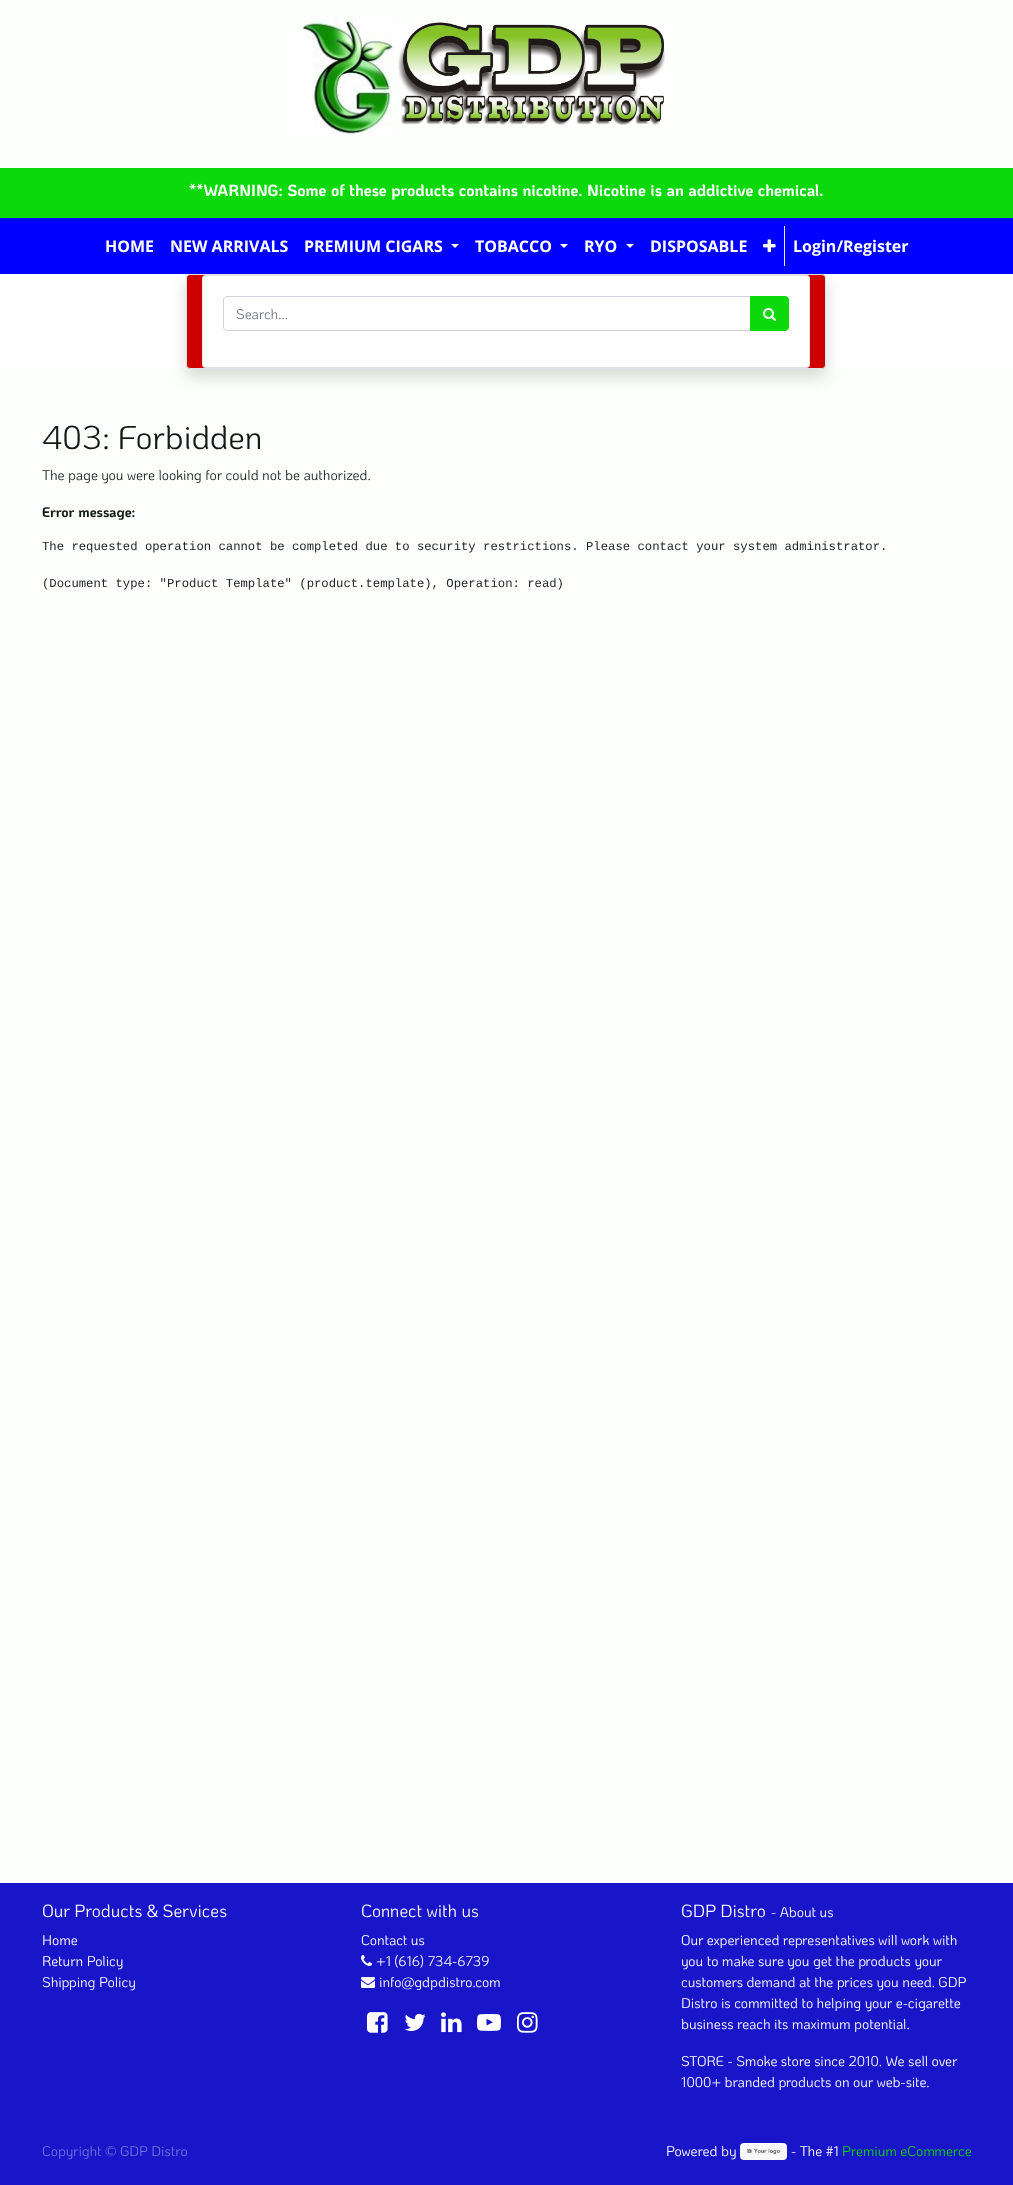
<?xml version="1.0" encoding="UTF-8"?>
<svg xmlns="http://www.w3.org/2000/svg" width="1013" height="2185">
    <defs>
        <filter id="blur1" x="-50%" y="-200%" width="200%" height="500%"><feGaussianBlur stdDeviation="8"/></filter>
    </defs>
    <rect width="100%" height="100%" fill="#FDFFFC"/>
    <image x="298" y="16" width="96" height="120" href="img_01.png"/>
    <image x="398" y="22" width="267" height="103" href="img_02.png"/>
    <rect x="0" y="168" width="1013" height="50" fill="#0CD80C"/>
    <text x="189" y="196" font-family="KoHo" font-size="16" font-weight="700" fill="#FFFFFF">**WARNING: Some of these products contains nicotine. Nicotine is an addictive chemical.</text>
    <rect x="0" y="218" width="1013" height="56" fill="#0000FF"/>
    <text x="105" y="252" font-family="Open Sans" font-size="16" font-weight="700" fill="#FFFFFF">HOME</text>
    <text x="170" y="252" font-family="Open Sans" font-size="16" font-weight="700" fill="#FFFFFF">NEW ARRIVALS</text>
    <text x="304" y="252" font-family="Open Sans" font-size="16" font-weight="700" fill="#FFFFFF">PREMIUM CIGARS</text>
    <path d="M 451 244 H 459 L 455 248 Z" fill="#FFFFFF"/>
    <text x="475" y="252" font-family="Open Sans" font-size="16" font-weight="700" fill="#FFFFFF">TOBACCO</text>
    <path d="M 560 244 H 568 L 564 248 Z" fill="#FFFFFF"/>
    <text x="584" y="252" font-family="Open Sans" font-size="16" font-weight="700" fill="#FFFFFF">RYO</text>
    <path d="M 626 244 H 634 L 630 248 Z" fill="#FFFFFF"/>
    <text x="650" y="252" font-family="Open Sans" font-size="16" font-weight="700" fill="#FFFFFF">DISPOSABLE</text>
    <image x="763" y="239" width="13" height="13" href="img_03.png"/>
    <rect x="784" y="226" width="1" height="40" fill="#E9ECEF"/>
    <text x="793" y="252" font-family="Open Sans" font-size="16" font-weight="700" fill="#FFFFFF">Login/Register</text>
    <rect x="0" y="274" width="1013" height="95" fill="#FFFFFF"/>
    <rect x="186" y="282" width="640" height="95" rx="4" fill="#000000" fill-opacity="0.15" filter="url(#blur1)"/>
    <rect x="186.5" y="274.5" width="639" height="94" rx="3.5" fill="#CE0000" stroke="#DEE2E6"/>
    <rect x="202" y="275" width="608" height="93" rx="4" fill="#FFFFFF"/>
    <rect x="202.5" y="275.5" width="607" height="92" rx="3.5" fill="none" stroke="#000000" stroke-opacity="0.12"/>
    <rect x="203" y="276" width="606" height="91" rx="3" fill="#FFFFFF" fill-opacity="0.9"/>
    <path d="M 227 296.5 H 750.5 V 330.5 H 227 C 225 330.5 223.5 329 223.5 327 V 300 C 223.5 298 225 296.5 227 296.5 Z" fill="none" stroke="#CED4DA"/>
    <text x="236" y="319" font-family="KoHo" font-size="14" fill="#6C757D">Search...</text>
    <path d="M 750.5 296.5 H 785 C 787 296.5 788.5 298 788.5 300 V 327 C 788.5 329 787 330.5 785 330.5 H 750.5 Z" fill="#0CD80C" stroke="#0CD80C"/>
    <image x="763" y="308" width="13" height="13" href="img_04.png"/>
    <text x="42" y="449" font-family="KoHo" font-size="33" fill="#131A14">403: Forbidden</text>
    <text x="42" y="480" font-family="KoHo" font-size="14" fill="#131A14">The page you were looking for could not be authorized.</text>
    <text x="42" y="517" font-family="KoHo" font-size="14" font-weight="700" fill="#131A14">Error message:</text>
    <text x="42" y="550" font-family="Liberation Mono" font-size="12.25" fill="#212529">The requested operation cannot be completed due to security restrictions. Please contact your system administrator.</text>
    <text x="42" y="587" font-family="Liberation Mono" font-size="12.25" fill="#212529">(Document type: "Product Template" (product.template), Operation: read)</text>
    <rect x="0" y="1883" width="1013" height="302" fill="#1916C9"/>
    <text x="42" y="1917" font-family="KoHo" font-size="17.5" fill="#FFFFFF">Our Products &amp; Services</text>
    <text font-family="KoHo" font-size="14" fill="#FFFFFF">
        <tspan x="42" y="1945">Home</tspan>
        <tspan x="42" y="1966">Return Policy</tspan>
        <tspan x="42" y="1987">Shipping Policy</tspan>
    </text>
    <text x="361" y="1917" font-family="KoHo" font-size="17.5" fill="#FFFFFF">Connect with us</text>
    <text x="361" y="1945" font-family="KoHo" font-size="14" fill="#FFFFFF">Contact us</text>
    <image x="361" y="1955" width="11" height="11" href="img_05.png"/>
    <text x="376" y="1966" font-family="KoHo" font-size="14" fill="#FFFFFF">+1 (616) 734-6739</text>
    <image x="361" y="1977" width="14" height="11" href="img_06.png"/>
    <text x="379" y="1987" font-family="KoHo" font-size="14" fill="#FFFFFF">info@gdpdistro.com</text>
    <image x="367" y="2012" width="21" height="21" href="img_07.png"/>
    <image x="404" y="2013" width="22" height="18" href="img_08.png"/>
    <image x="441" y="2012" width="21" height="21" href="img_09.png"/>
    <image x="477" y="2014" width="24" height="17" href="img_10.png"/>
    <image x="517" y="2012" width="21" height="21" href="img_11.png"/>
    <text x="681" y="1917" font-family="KoHo" font-size="17.5" fill="#FFFFFF">GDP Distro</text>
    <text x="771" y="1917" font-family="KoHo" font-size="14" fill="#FFFFFF">- About us</text>
    <text font-family="KoHo" font-size="14" fill="#FFFFFF">
        <tspan x="681" y="1945">Our experienced representatives will work with</tspan>
        <tspan x="681" y="1966">you to make sure you get the products your</tspan>
        <tspan x="681" y="1987">customers demand at the prices you need. GDP</tspan>
        <tspan x="681" y="2008">Distro is committed to helping your e-cigarette</tspan>
        <tspan x="681" y="2029">business reach its maximum potential.</tspan>
    </text>
    <text font-family="KoHo" font-size="14" fill="#FFFFFF">
        <tspan x="681" y="2066">STORE - Smoke store since 2010. We sell over</tspan>
        <tspan x="681" y="2087">1000+ branded products on our web-site.</tspan>
    </text>
    <text x="42" y="2156" font-family="KoHo" font-size="14" fill="#7573DF">Copyright © GDP Distro</text>
    <text x="666" y="2156" font-family="KoHo" font-size="14" fill="#FFFFFF">Powered by</text>
    <rect x="740" y="2143" width="47" height="17" rx="4" fill="#F7F8F7"/>
    <image x="746" y="2148" width="35" height="7" href="img_12.png"/>
    <text x="791" y="2156" font-family="KoHo" font-size="14" fill="#FFFFFF">- The #1</text>
    <text x="842" y="2156" font-family="KoHo" font-size="14" fill="#0CD80C">Premium eCommerce</text>
</svg>
